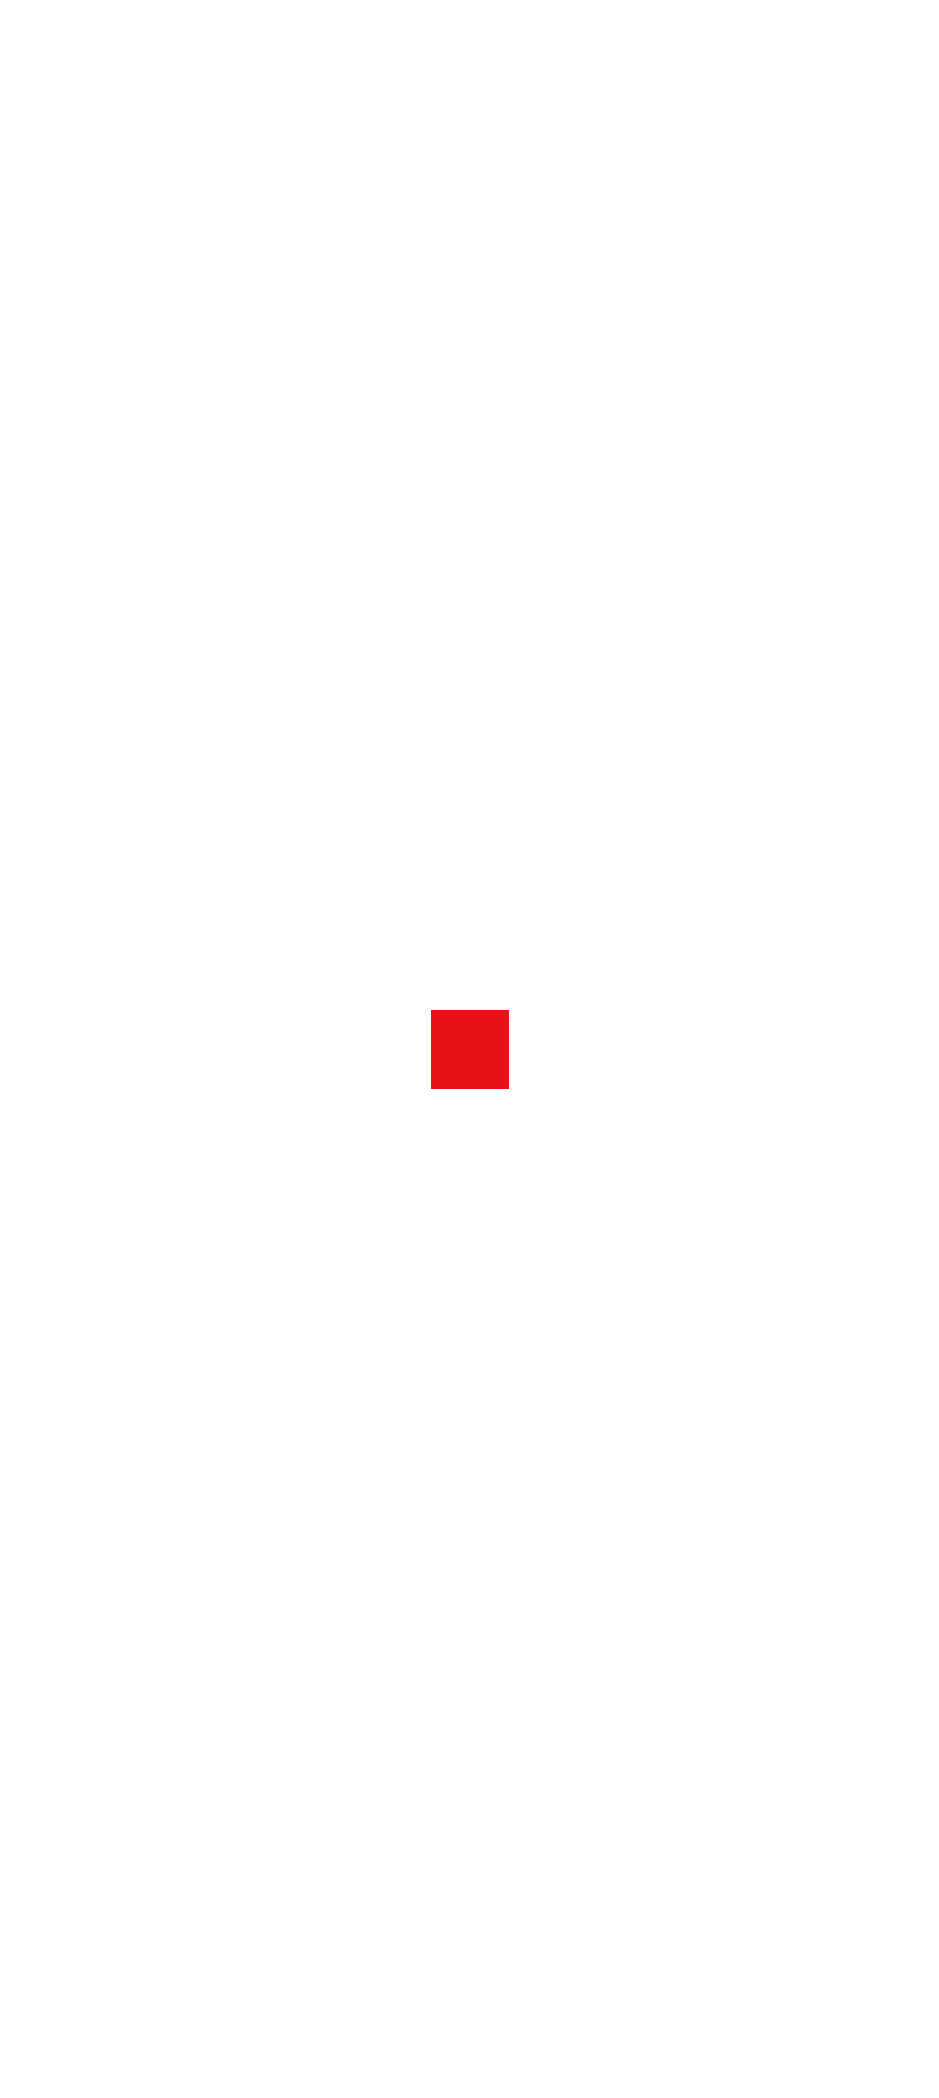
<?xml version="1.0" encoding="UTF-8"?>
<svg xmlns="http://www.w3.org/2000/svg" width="939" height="2098">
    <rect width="100%" height="100%" fill="#FFFFFF"/>
    <rect x="431" y="1010" width="78" height="79" fill="#E71319"/>
</svg>
